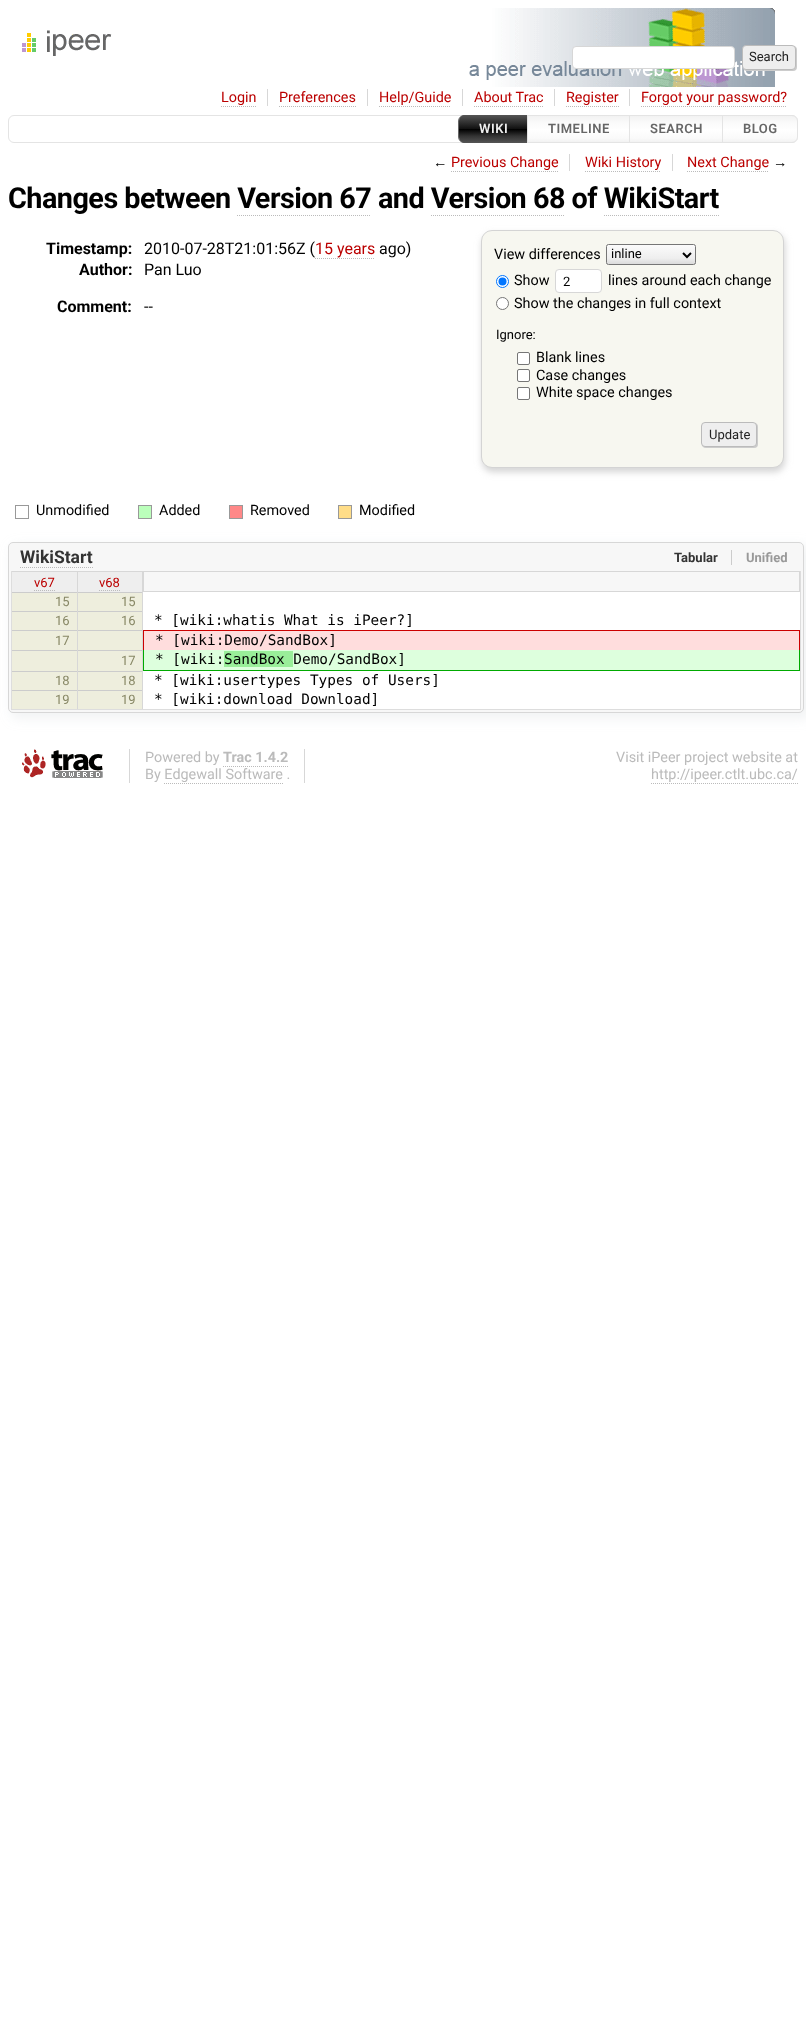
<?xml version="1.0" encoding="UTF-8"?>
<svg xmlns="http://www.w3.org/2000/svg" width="806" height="2042">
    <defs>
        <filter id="blur1" x="-50%" y="-200%" width="200%" height="500%"><feGaussianBlur stdDeviation="0.5"/></filter>
        <linearGradient id="g1" gradientUnits="userSpaceOnUse" x1="493" y1="115" x2="493" y2="143"><stop offset="0" stop-color="#555555"/><stop offset="0.25" stop-color="#333333"/><stop offset="0.49" stop-color="#111111"/><stop offset="0.51" stop-color="#000000"/><stop offset="0.75" stop-color="#333333"/><stop offset="1" stop-color="#555555"/></linearGradient>
        <linearGradient id="g2" gradientUnits="userSpaceOnUse" x1="579" y1="116" x2="579" y2="142"><stop offset="0" stop-color="#F2F2F2"/><stop offset="0.25" stop-color="#FAFAFA"/><stop offset="0.49" stop-color="#FEFEFE"/><stop offset="0.51" stop-color="#FFFFFF"/><stop offset="0.85" stop-color="#FAFAFA"/><stop offset="1" stop-color="#F2F2F2"/></linearGradient>
        <linearGradient id="g3" gradientUnits="userSpaceOnUse" x1="676" y1="116" x2="676" y2="142"><stop offset="0" stop-color="#F2F2F2"/><stop offset="0.25" stop-color="#FAFAFA"/><stop offset="0.49" stop-color="#FEFEFE"/><stop offset="0.51" stop-color="#FFFFFF"/><stop offset="0.85" stop-color="#FAFAFA"/><stop offset="1" stop-color="#F2F2F2"/></linearGradient>
        <clipPath id="clip1"><path d="M 722 115 H 792 C 795.5 115 798 117.5 798 121 V 137 C 798 140.5 795.5 143 792 143 H 722 Z"/></clipPath>
        <linearGradient id="g4" gradientUnits="userSpaceOnUse" x1="760" y1="116" x2="760" y2="142"><stop offset="0" stop-color="#F2F2F2"/><stop offset="0.25" stop-color="#FAFAFA"/><stop offset="0.49" stop-color="#FEFEFE"/><stop offset="0.51" stop-color="#FFFFFF"/><stop offset="0.85" stop-color="#FAFAFA"/><stop offset="1" stop-color="#F2F2F2"/></linearGradient>
        <filter id="blur2" x="-50%" y="-200%" width="200%" height="500%"><feGaussianBlur stdDeviation="3.5"/></filter>
        <clipPath id="clip2"><rect x="606" y="244" width="90" height="21" rx="2.5"/></clipPath>
        <linearGradient id="g5" gradientUnits="userSpaceOnUse" x1="651" y1="264" x2="651" y2="245"><stop offset="0" stop-color="#DBDBDB"/><stop offset="0.3" stop-color="#EEEEEE"/><stop offset="1" stop-color="#FBFBFB"/></linearGradient>
        <filter id="blur3" x="-50%" y="-200%" width="200%" height="500%"><feGaussianBlur stdDeviation="6"/></filter>
    </defs>
    <rect width="100%" height="100%" fill="#FFFFFF"/>
    <image x="22" y="8" width="753" height="79" href="img_01.png"/>
    <rect x="572.5" y="46.5" width="162" height="22" rx="3.5" fill="#FFFFFF" stroke="#D7D7D7"/>
    <rect x="743" y="46" width="54" height="25" rx="4" fill="#CCCCCC" filter="url(#blur1)"/>
    <rect x="742.5" y="45.5" width="53" height="24" rx="3.5" fill="#EEEEEE" stroke="#BBBBBB"/>
    <text x="749" y="61" font-family="Roboto" font-size="13" fill="#222222">Search</text>
    <rect x="267" y="89" width="1" height="17" fill="#D7D7D7"/>
    <text x="221" y="102" font-family="Roboto" font-size="14.4" fill="#BB0000">Login</text>
    <path d="M 221 106.5 H 257" fill="none" stroke="#BBBBBB" stroke-dasharray="1 1"/>
    <rect x="367" y="89" width="1" height="17" fill="#D7D7D7"/>
    <text x="279" y="102" font-family="Roboto" font-size="14.4" fill="#BB0000">Preferences</text>
    <path d="M 279 106.5 H 356" fill="none" stroke="#BBBBBB" stroke-dasharray="1 1"/>
    <rect x="462" y="89" width="1" height="17" fill="#D7D7D7"/>
    <text x="379" y="102" font-family="Roboto" font-size="14.4" fill="#BB0000">Help/Guide</text>
    <path d="M 379 106.5 H 451" fill="none" stroke="#BBBBBB" stroke-dasharray="1 1"/>
    <rect x="554" y="89" width="1" height="17" fill="#D7D7D7"/>
    <text x="474" y="102" font-family="Roboto" font-size="14.4" fill="#BB0000">About Trac</text>
    <path d="M 474 106.5 H 543" fill="none" stroke="#BBBBBB" stroke-dasharray="1 1"/>
    <rect x="629" y="89" width="1" height="17" fill="#D7D7D7"/>
    <text x="566" y="102" font-family="Roboto" font-size="14.4" fill="#BB0000">Register</text>
    <path d="M 566 106.5 H 619" fill="none" stroke="#BBBBBB" stroke-dasharray="1 1"/>
    <text x="641" y="102" font-family="Roboto" font-size="14.4" fill="#BB0000">Forgot your password?</text>
    <path d="M 641 106.5 H 787" fill="none" stroke="#BBBBBB" stroke-dasharray="1 1"/>
    <rect x="8.5" y="115.5" width="789" height="27" rx="5.5" fill="none" stroke="#E4E4E4"/>
    <path d="M 464 115.5 H 527.5 V 142.5 H 464 C 461 142.5 458.5 140 458.5 137 V 121 C 458.5 118 461 115.5 464 115.5 Z" fill="none" stroke="#666666"/>
    <path d="M 465 115 H 527 V 143 H 465 C 461.5 143 459 140.5 459 137 V 121 C 459 117.5 461.5 115 465 115 Z" fill="url(#g1)"/>
    <text x="479" y="133" font-family="Roboto" font-size="13" font-weight="600" letter-spacing="0.5" fill="#EEEEEE">WIKI</text>
    <rect x="528" y="116" width="101" height="26" fill="url(#g2)"/>
    <rect x="527.5" y="115.5" width="102" height="27" fill="none" stroke="#E4E4E4"/>
    <text x="548" y="133" font-family="Roboto" font-size="13" font-weight="600" letter-spacing="0.5" fill="#666666">TIMELINE</text>
    <rect x="630" y="116" width="92" height="26" fill="url(#g3)"/>
    <rect x="629.5" y="115.5" width="93" height="27" fill="none" stroke="#E4E4E4"/>
    <text x="650" y="133" font-family="Roboto" font-size="13" font-weight="600" letter-spacing="0.5" fill="#666666">SEARCH</text>
    <g clip-path="url(#clip1)">
        <rect x="723" y="116" width="75" height="26" fill="url(#g4)"/>
    </g>
    <path d="M 722.5 115.5 H 792 C 795 115.5 797.5 118 797.5 121 V 137 C 797.5 140 795 142.5 792 142.5 H 722.5 Z" fill="none" stroke="#E4E4E4"/>
    <text x="743" y="133" font-family="Roboto" font-size="13" font-weight="600" letter-spacing="0.5" fill="#666666">BLOG</text>
    <rect x="569" y="154" width="1" height="17" fill="#D7D7D7"/>
    <text x="433" y="167" font-family="Liberation Sans" font-size="14.4" fill="#000000">←</text>
    <text x="451" y="167" font-family="Roboto" font-size="14.4" fill="#BB0000">Previous Change</text>
    <path d="M 451 171.5 H 558" fill="none" stroke="#BBBBBB" stroke-dasharray="1 1"/>
    <rect x="672" y="154" width="1" height="17" fill="#D7D7D7"/>
    <text x="585" y="167" font-family="Roboto" font-size="14.4" fill="#BB0000">Wiki History</text>
    <path d="M 585 171.5 H 661" fill="none" stroke="#BBBBBB" stroke-dasharray="1 1"/>
    <text x="687" y="167" font-family="Roboto" font-size="14.4" fill="#BB0000">Next Change</text>
    <path d="M 687 171.5 H 769" fill="none" stroke="#BBBBBB" stroke-dasharray="1 1"/>
    <text x="773" y="167" font-family="Liberation Sans" font-size="14.4" fill="#000000">→</text>
    <text x="8" y="208" font-family="Roboto" font-size="28.8" font-weight="700" letter-spacing="-0.52" fill="#000000">Changes between Version 67 and Version 68 of WikiStart</text>
    <path d="M 237 215.5 H 371" fill="none" stroke="#BBBBBB" stroke-dasharray="1 1"/>
    <path d="M 431 215.5 H 565" fill="none" stroke="#BBBBBB" stroke-dasharray="1 1"/>
    <path d="M 604 215.5 H 719" fill="none" stroke="#BBBBBB" stroke-dasharray="1 1"/>
    <text x="46" y="254" font-family="Roboto" font-size="16" font-weight="700" fill="#000000">Timestamp:</text>
    <text x="144" y="254" font-family="Roboto" font-size="16" fill="#000000">2010-07-28T21:01:56Z (</text>
    <text x="315" y="254" font-family="Roboto" font-size="16" fill="#BB0000">15 years</text>
    <path d="M 315 258.5 H 375" fill="none" stroke="#BBBBBB" stroke-dasharray="1 1"/>
    <text x="379" y="254" font-family="Roboto" font-size="16" fill="#000000">ago)</text>
    <text x="79" y="275" font-family="Roboto" font-size="16" font-weight="700" fill="#000000">Author:</text>
    <text x="144" y="275" font-family="Roboto" font-size="16" fill="#000000">Pan Luo</text>
    <text x="57" y="312" font-family="Roboto" font-size="16" font-weight="700" fill="#000000">Comment:</text>
    <text x="144" y="312" font-family="Roboto" font-size="16" fill="#000000">--</text>
    <rect x="482" y="234" width="303" height="238" rx="11" fill="#D4D4D4" filter="url(#blur2)"/>
    <rect x="481.5" y="230.5" width="302" height="237" rx="10.5" fill="#F7F7F0" stroke="#D4D4D4"/>
    <text x="494" y="259" font-family="Roboto" font-size="14.4" fill="#000000">View differences</text>
    <g clip-path="url(#clip2)">
        <rect x="606" y="245" width="90" height="19" fill="url(#g5)"/>
    </g>
    <rect x="606.5" y="244.5" width="89" height="20" rx="2" fill="none" stroke="#767676"/>
    <path d="M 683 253 L 687 257 L 691 253" fill="none" stroke="#000000" stroke-width="2"/>
    <text x="611" y="258" font-family="Roboto" font-size="13" fill="#000000">inline</text>
    <circle cx="502.5" cy="281.5" r="6" fill="#FFFFFF" stroke="#0075FF"/>
    <circle cx="502.5" cy="281.5" r="4" fill="#0075FF"/>
    <text x="514" y="285" font-family="Roboto" font-size="14.4" fill="#000000">Show</text>
    <rect x="555.5" y="269.5" width="46" height="23" rx="3.5" fill="#FFFFFF" stroke="#D7D7D7"/>
    <text x="563" y="286" font-family="Roboto" font-size="13" fill="#000000">2</text>
    <text x="608" y="285" font-family="Roboto" font-size="14.4" fill="#000000">lines around each change</text>
    <circle cx="502.5" cy="303.5" r="6" fill="#FFFFFF" stroke="#767676"/>
    <text x="514" y="308" font-family="Roboto" font-size="14.4" fill="#000000">Show the changes in full context</text>
    <text x="496" y="339" font-family="Roboto" font-size="13" fill="#000000">Ignore:</text>
    <rect x="517.5" y="352.5" width="12" height="12" rx="1.5" fill="#FFFFFF" stroke="#767676"/>
    <text x="536" y="362" font-family="Roboto" font-size="14.4" fill="#000000">Blank lines</text>
    <rect x="517.5" y="369.5" width="12" height="12" rx="1.5" fill="#FFFFFF" stroke="#767676"/>
    <text x="536" y="380" font-family="Roboto" font-size="14.4" fill="#000000">Case changes</text>
    <rect x="517.5" y="387.5" width="12" height="12" rx="1.5" fill="#FFFFFF" stroke="#767676"/>
    <text x="536" y="397" font-family="Roboto" font-size="14.4" fill="#000000">White space changes</text>
    <rect x="702" y="423" width="56" height="25" rx="4" fill="#CCCCCC" filter="url(#blur1)"/>
    <rect x="701.5" y="422.5" width="55" height="24" rx="3.5" fill="#EEEEEE" stroke="#BBBBBB"/>
    <text x="709" y="439" font-family="Roboto" font-size="13" fill="#222222">Update</text>
    <rect x="15.5" y="505.5" width="13" height="13" fill="none" stroke="#999999"/>
    <text x="36" y="515" font-family="Roboto" font-size="14.4" fill="#000000">Unmodified</text>
    <rect x="138.5" y="505.5" width="13" height="13" fill="#BBFFBB" stroke="#999999"/>
    <text x="159" y="515" font-family="Roboto" font-size="14.4" fill="#000000">Added</text>
    <rect x="229.5" y="505.5" width="13" height="13" fill="#FF8888" stroke="#999999"/>
    <text x="250" y="515" font-family="Roboto" font-size="14.4" fill="#000000">Removed</text>
    <rect x="338.5" y="505.5" width="13" height="13" fill="#FFDD88" stroke="#999999"/>
    <text x="359" y="515" font-family="Roboto" font-size="14.4" fill="#000000">Modified</text>
    <rect x="11" y="545" width="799" height="174" rx="6" fill="#D2D7DC" fill-opacity="0.3" filter="url(#blur3)"/>
    <rect x="8.5" y="542.5" width="795" height="170" rx="4.5" fill="#F7F7F7" stroke="#D7D7D7"/>
    <text x="20" y="563" font-family="Roboto" font-size="17.5" font-weight="700" fill="#333333">WikiStart</text>
    <path d="M 20 567.5 H 93" fill="none" stroke="#BBBBBB" stroke-dasharray="1 1"/>
    <text x="674" y="562" font-family="Roboto" font-size="13" font-weight="700" fill="#333333">Tabular</text>
    <text x="746" y="562" font-family="Roboto" font-size="13" font-weight="700" fill="#999999">Unified</text>
    <rect x="731" y="550" width="1" height="15" fill="#CCCCCC"/>
    <rect x="800" y="571" width="1" height="139" fill="#DDDDDD"/>
    <rect x="11" y="709" width="790" height="1" fill="#DDDDDD"/>
    <rect x="11" y="571" width="1" height="139" fill="#DDDDDD"/>
    <rect x="12" y="572" width="65" height="20" fill="#EEEEEE"/>
    <rect x="12" y="571" width="131" height="1" fill="#D7D7D7"/>
    <rect x="77" y="571" width="1" height="21" fill="#D7D7D7"/>
    <text x="34" y="587" font-family="Roboto" font-size="13" fill="#BB0000">v67</text>
    <path d="M 34 590.5 H 55" fill="none" stroke="#BBBBBB" stroke-dasharray="1 1"/>
    <rect x="78" y="572" width="64" height="20" fill="#EEEEEE"/>
    <rect x="142" y="571" width="1" height="21" fill="#D7D7D7"/>
    <text x="99" y="587" font-family="Roboto" font-size="13" fill="#BB0000">v68</text>
    <path d="M 99 590.5 H 120" fill="none" stroke="#BBBBBB" stroke-dasharray="1 1"/>
    <rect x="143.5" y="571.5" width="656" height="20" fill="none" stroke="#D7D7D7"/>
    <rect x="12" y="593" width="65" height="18" fill="#EEEEDD"/>
    <rect x="12" y="592" width="131" height="1" fill="#CCCCCC"/>
    <rect x="77" y="592" width="1" height="19" fill="#D7D7D7"/>
    <text x="55" y="606" font-family="Roboto" font-size="13" fill="#888866">15</text>
    <rect x="78" y="593" width="64" height="18" fill="#EEEEDD"/>
    <rect x="142" y="592" width="1" height="19" fill="#D7D7D7"/>
    <text x="121" y="606" font-family="Roboto" font-size="13" fill="#888866">15</text>
    <rect x="143" y="592" width="657" height="38" fill="#FFFFFF"/>
    <rect x="12" y="612" width="65" height="18" fill="#EEEEDD"/>
    <rect x="12" y="611" width="131" height="1" fill="#CCCCCC"/>
    <rect x="77" y="611" width="1" height="19" fill="#D7D7D7"/>
    <text x="55" y="625" font-family="Roboto" font-size="13" fill="#888866">16</text>
    <rect x="78" y="612" width="64" height="18" fill="#EEEEDD"/>
    <rect x="142" y="611" width="1" height="19" fill="#D7D7D7"/>
    <text x="121" y="625" font-family="Roboto" font-size="13" fill="#888866">16</text>
    <text x="154" y="625" font-family="DejaVu Sans Mono" font-size="14.4" fill="#000000">* [wiki:whatis What is iPeer?]</text>
    <rect x="12" y="631" width="65" height="19" fill="#EEEEDD"/>
    <rect x="12" y="630" width="131" height="1" fill="#CCCCCC"/>
    <rect x="77" y="630" width="1" height="20" fill="#D7D7D7"/>
    <text x="55" y="645" font-family="Roboto" font-size="13" fill="#888866">17</text>
    <rect x="78" y="631" width="64" height="19" fill="#EEEEDD"/>
    <rect x="142" y="630" width="1" height="20" fill="#D7D7D7"/>
    <rect x="144" y="631" width="655" height="19" fill="#FFDDDD"/>
    <rect x="143" y="630" width="657" height="1" fill="#CC0000"/>
    <rect x="799" y="630" width="1" height="20" fill="#CC0000"/>
    <rect x="143" y="630" width="1" height="20" fill="#CC0000"/>
    <text x="155" y="645" font-family="DejaVu Sans Mono" font-size="14.4" fill="#000000">* [wiki:Demo/SandBox]</text>
    <rect x="12" y="651" width="65" height="20" fill="#EEEEDD"/>
    <rect x="12" y="650" width="131" height="1" fill="#CCCCCC"/>
    <rect x="77" y="650" width="1" height="21" fill="#D7D7D7"/>
    <rect x="144" y="650" width="655" height="20" fill="#DDFFDD"/>
    <rect x="799" y="650" width="1" height="21" fill="#00AA00"/>
    <rect x="143" y="670" width="657" height="1" fill="#00AA00"/>
    <rect x="143" y="650" width="1" height="21" fill="#00AA00"/>
    <text x="155" y="664" font-family="DejaVu Sans Mono" font-size="14.4" fill="#000000">* [wiki:</text>
    <rect x="224" y="651" width="69" height="16" fill="#99EE99"/>
    <text x="224" y="664" font-family="DejaVu Sans Mono" font-size="14.4" fill="#000000">SandBox Demo/SandBox]</text>
    <rect x="78" y="651" width="64" height="20" fill="#EEEEDD"/>
    <rect x="142" y="650" width="1" height="21" fill="#D7D7D7"/>
    <text x="121" y="665" font-family="Roboto" font-size="13" fill="#888866">17</text>
    <rect x="12" y="672" width="65" height="18" fill="#EEEEDD"/>
    <rect x="12" y="671" width="131" height="1" fill="#CCCCCC"/>
    <rect x="77" y="671" width="1" height="19" fill="#D7D7D7"/>
    <text x="55" y="685" font-family="Roboto" font-size="13" fill="#888866">18</text>
    <rect x="78" y="672" width="64" height="18" fill="#EEEEDD"/>
    <rect x="142" y="671" width="1" height="19" fill="#D7D7D7"/>
    <text x="121" y="685" font-family="Roboto" font-size="13" fill="#888866">18</text>
    <rect x="143" y="671" width="657" height="38" fill="#FFFFFF"/>
    <text x="154" y="685" font-family="DejaVu Sans Mono" font-size="14.4" fill="#000000">* [wiki:usertypes Types of Users]</text>
    <rect x="12" y="691" width="65" height="18" fill="#EEEEDD"/>
    <rect x="12" y="690" width="131" height="1" fill="#CCCCCC"/>
    <rect x="77" y="690" width="1" height="19" fill="#D7D7D7"/>
    <text x="55" y="704" font-family="Roboto" font-size="13" fill="#888866">19</text>
    <rect x="78" y="691" width="64" height="18" fill="#EEEEDD"/>
    <rect x="142" y="690" width="1" height="19" fill="#D7D7D7"/>
    <text x="121" y="704" font-family="Roboto" font-size="13" fill="#888866">19</text>
    <text x="154" y="704" font-family="DejaVu Sans Mono" font-size="14.4" fill="#000000">* [wiki:download Download]</text>
    <image x="22" y="749" width="81" height="29" href="img_02.png"/>
    <rect x="304" y="749" width="1" height="34" fill="#D7D7D7"/>
    <rect x="129" y="749" width="1" height="34" fill="#D7D7D7"/>
    <text x="145" y="762" font-family="Roboto" font-size="14.4" fill="#BBBBBB">Powered by</text>
    <text x="223" y="762" font-family="Roboto" font-size="14.4" font-weight="700" fill="#BBBBBB">Trac 1.4.2</text>
    <path d="M 223 766.5 H 288" fill="none" stroke="#BBBBBB" stroke-dasharray="1 1"/>
    <text x="145" y="779" font-family="Roboto" font-size="14.4" fill="#BBBBBB">By Edgewall Software .</text>
    <path d="M 164 783.5 H 283" fill="none" stroke="#BBBBBB" stroke-dasharray="1 1"/>
    <text x="616" y="762" font-family="Roboto" font-size="14.4" fill="#BBBBBB">Visit iPeer project website at</text>
    <text x="651" y="779" font-family="Roboto" font-size="14.4" fill="#BBBBBB">http://ipeer.ctlt.ubc.ca/</text>
    <path d="M 651 783.5 H 798" fill="none" stroke="#BBBBBB" stroke-dasharray="1 1"/>
</svg>
